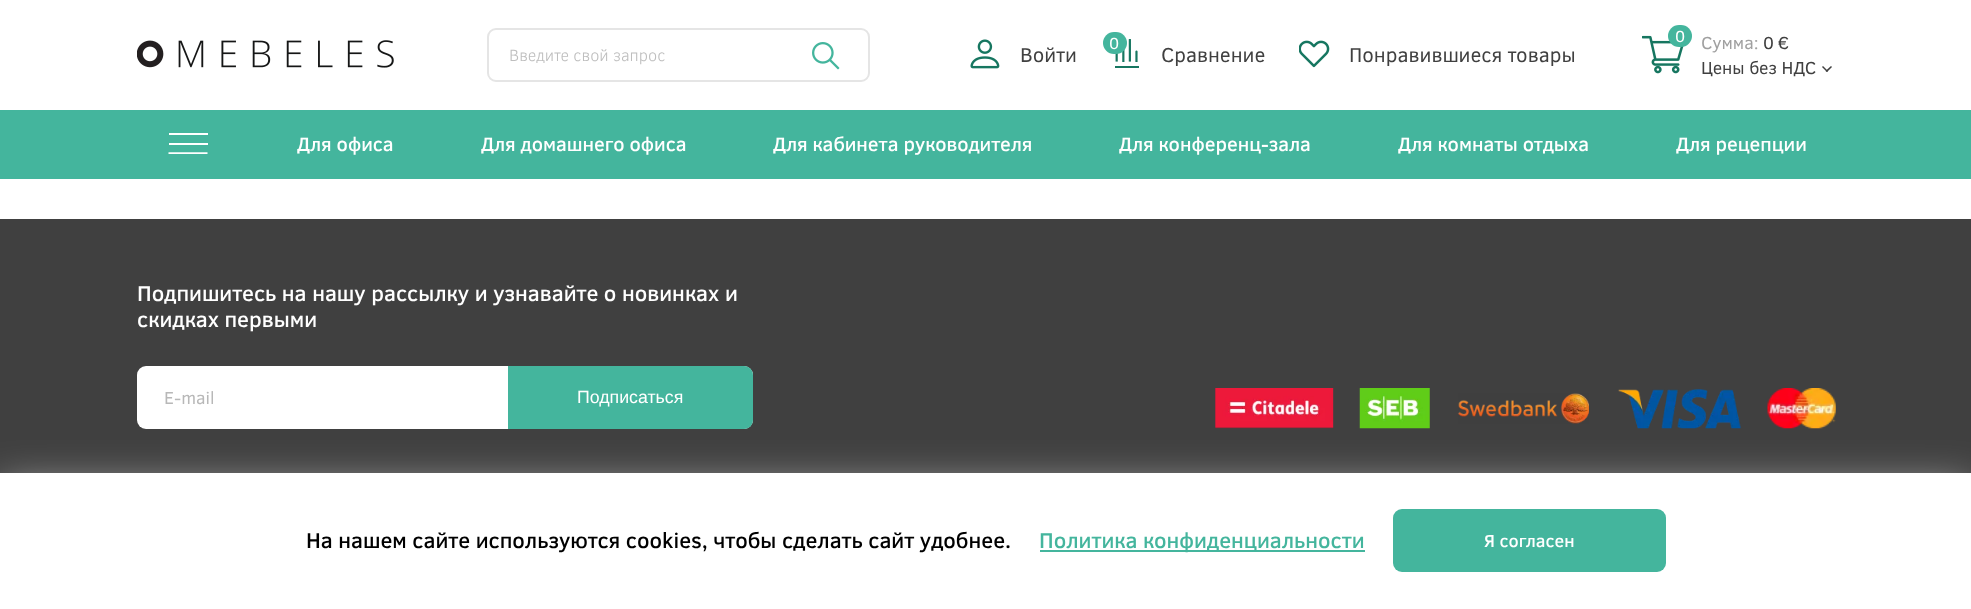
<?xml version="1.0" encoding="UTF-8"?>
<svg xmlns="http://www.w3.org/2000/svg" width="1971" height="609">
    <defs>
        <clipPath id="clip1"><rect x="166" y="133" width="44" height="21"/></clipPath>
        <filter id="blur1" x="-50%" y="-200%" width="200%" height="500%"><feGaussianBlur stdDeviation="20.5"/></filter>
    </defs>
    <rect width="100%" height="100%" fill="#FFFFFF"/>
    <rect x="0" y="110" width="1971" height="69" fill="#44B59D"/>
    <image x="137" y="40" width="257" height="28" href="img_01.png"/>
    <rect x="488" y="29" width="381" height="52" rx="8" fill="none" stroke="#E5E5E5" stroke-width="2"/>
    <text x="509" y="61" font-family="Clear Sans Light" font-size="16.5" font-weight="300" fill="#BEBEBE">Введите свой запрос</text>
    <image x="812" y="42" width="28" height="28" href="img_02.png"/>
    <image x="970" y="39" width="30" height="30" href="img_03.png"/>
    <text x="1020" y="62" font-family="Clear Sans" font-size="20.5" fill="#404040">Войти</text>
    <image x="1115" y="39" width="24" height="29" href="img_04.png"/>
    <rect x="1103" y="32" width="24" height="22" rx="11" fill="#44B59D"/>
    <text x="1109" y="49" font-family="Clear Sans" font-size="16.5" fill="#FFFFFF">0</text>
    <text x="1161" y="62" font-family="Clear Sans" font-size="20.5" fill="#404040">Сравнение</text>
    <image x="1299" y="40" width="31" height="28" href="img_05.png"/>
    <text x="1349" y="62" font-family="Clear Sans" font-size="20.5" fill="#404040">Понравившиеся товары</text>
    <image x="1642" y="35" width="42" height="39" href="img_06.png"/>
    <rect x="1668" y="25" width="24" height="22" rx="11" fill="#44B59D"/>
    <text x="1675" y="42" font-family="Clear Sans" font-size="16.5" fill="#FFFFFF">0</text>
    <text x="1701" y="49" font-family="Clear Sans" font-size="17.75" fill="#A0A0A0">Сумма:</text>
    <text x="1763" y="49" font-family="Clear Sans" font-size="17.75" fill="#404040">0</text>
    <text x="1778" y="49" font-family="Clear Sans" font-size="17.75" fill="#404040">€</text>
    <text x="1701" y="74" font-family="Clear Sans" font-size="17.75" fill="#404040">Цены без НДС</text>
    <path d="M 1831 66 L 1832 67 L 1827 72 L 1825.5 71 Z" fill="#404040"/>
    <path d="M 1823 66 L 1828 71 L 1827 72 L 1822 67 Z" fill="#404040"/>
    <rect x="169" y="133" width="39" height="2" fill="#FFFFFF"/>
    <rect x="169" y="143" width="39" height="2" fill="#FFFFFF"/>
    <g clip-path="url(#clip1)">
        <path d="M 168.5 153.5 H 207.5" fill="none" stroke="#FFFFFF" stroke-width="2.4"/>
    </g>
    <text x="297" y="151" font-family="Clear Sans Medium" font-size="19.75" font-weight="500" fill="#FFFFFF">Для офиса</text>
    <text x="481" y="151" font-family="Clear Sans Medium" font-size="19.75" font-weight="500" fill="#FFFFFF">Для домашнего офиса</text>
    <text x="773" y="151" font-family="Clear Sans Medium" font-size="19.75" font-weight="500" fill="#FFFFFF">Для кабинета руководителя</text>
    <text x="1119" y="151" font-family="Clear Sans Medium" font-size="19.75" font-weight="500" fill="#FFFFFF">Для конференц-зала</text>
    <text x="1398" y="151" font-family="Clear Sans Medium" font-size="19.75" font-weight="500" fill="#FFFFFF">Для комнаты отдыха</text>
    <text x="1676" y="151" font-family="Clear Sans Medium" font-size="19.75" font-weight="500" fill="#FFFFFF">Для рецепции</text>
    <rect x="0" y="219" width="1971" height="254" fill="#404040"/>
    <text x="137" y="301" font-family="Clear Sans Medium" font-size="21.9" font-weight="500" fill="#FFFFFF">Подпишитесь на нашу рассылку и узнавайте о новинках</text>
    <text x="725" y="301" font-family="Clear Sans Medium" font-size="21.9" font-weight="500" fill="#FFFFFF">и</text>
    <text x="137" y="327" font-family="Clear Sans Medium" font-size="21.9" font-weight="500" fill="#FFFFFF">скидках первыми</text>
    <rect x="137" y="366" width="616" height="63" rx="9" fill="#FFFFFF"/>
    <text x="164" y="404" font-family="Clear Sans" font-size="17.75" fill="#B8B8B8">E-mail</text>
    <path d="M 508 366 H 744 C 749 366 753 370 753 375 V 420 C 753 425 749 429 744 429 H 508 Z" fill="#44B59D"/>
    <text x="577" y="403" font-family="Liberation Sans" font-size="17.75" fill="#FFFFFF">Подписаться</text>
    <image x="1215" y="388" width="119" height="41" href="img_07.png"/>
    <image x="1359" y="388" width="71" height="41" href="img_08.png"/>
    <image x="1457" y="393" width="132" height="31" href="img_09.png"/>
    <image x="1618" y="389" width="123" height="40" href="img_10.png"/>
    <image x="1767" y="388" width="69" height="41" href="img_11.png"/>
    <rect x="0" y="487" width="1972" height="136" fill="#BEBEBE" filter="url(#blur1)"/>
    <rect x="0" y="473" width="1971" height="136" fill="#FFFFFF"/>
    <text x="306" y="548" font-family="Clear Sans Medium" font-size="21.9" font-weight="500" fill="#000000">На нашем сайте используются cookies, чтобы сделать сайт удобнее.</text>
    <rect x="1040" y="550" width="325" height="2" fill="#44B59D"/>
    <text x="1039" y="548" font-family="Clear Sans Medium" font-size="21.9" font-weight="500" fill="#44B59D">Политика конфиденциальности</text>
    <rect x="1393" y="509" width="273" height="63" rx="9" fill="#44B59D"/>
    <text x="1484" y="547" font-family="Clear Sans Medium" font-size="17.75" font-weight="500" fill="#FFFFFF">Я согласен</text>
</svg>
